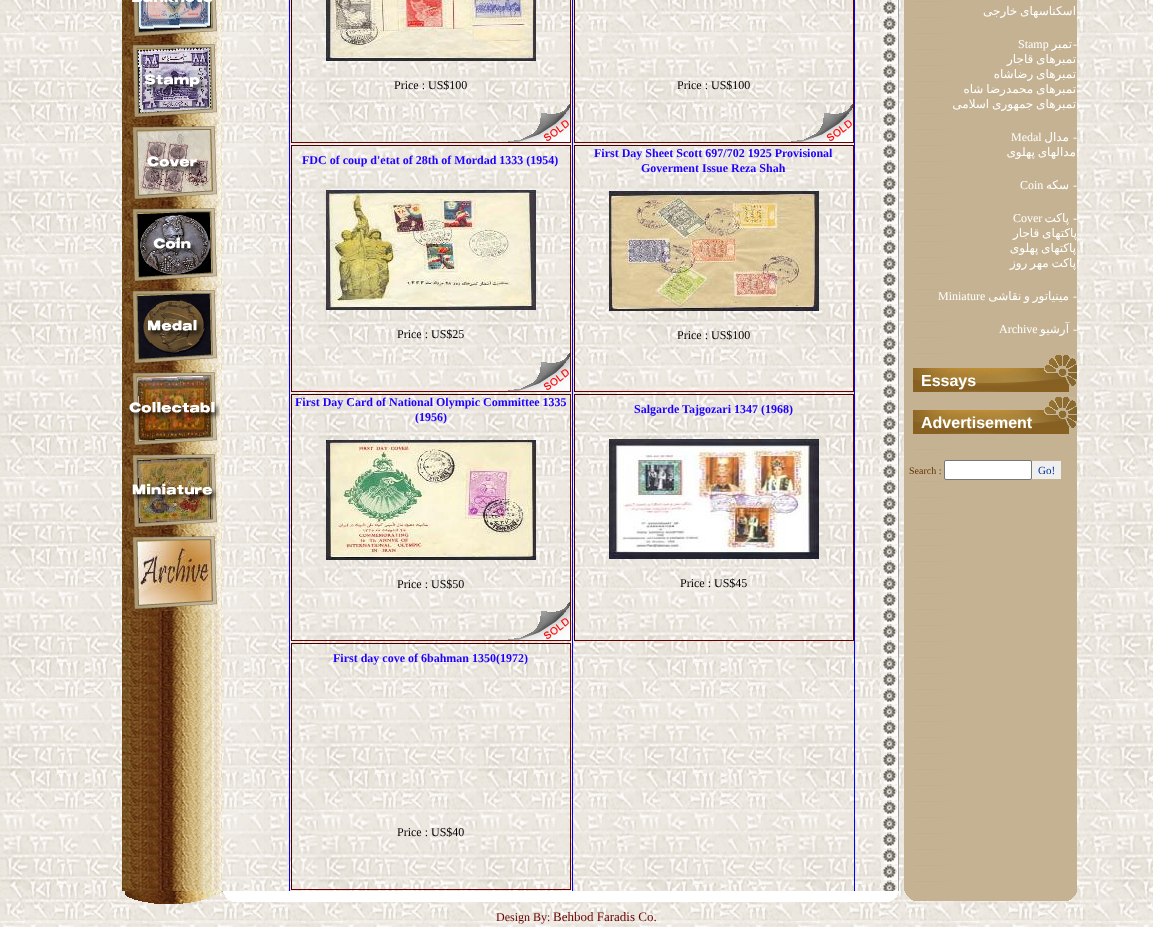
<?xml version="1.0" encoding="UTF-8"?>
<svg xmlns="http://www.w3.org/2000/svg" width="1153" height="927">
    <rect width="100%" height="100%" fill="#FFFFFF"/>
    <image x="0" y="0" width="1153" height="927" href="img_01.png"/>
    <image x="122" y="0" width="100" height="891" href="img_02.png"/>
    <image x="123" y="0" width="97" height="37" href="img_03.png"/>
    <image x="123" y="42" width="97" height="77" href="img_04.png"/>
    <image x="123" y="124" width="97" height="77" href="img_05.png"/>
    <image x="123" y="206" width="97" height="77" href="img_06.png"/>
    <image x="123" y="288" width="97" height="77" href="img_07.png"/>
    <image x="123" y="370" width="97" height="77" href="img_08.png"/>
    <image x="123" y="452" width="97" height="77" href="img_09.png"/>
    <image x="123" y="534" width="97" height="77" href="img_10.png"/>
    <rect x="223" y="0" width="41" height="891" fill="#FFFFFF" fill-opacity="0.1"/>
    <rect x="570" y="0" width="1" height="143" fill="#660000"/>
    <rect x="291" y="142" width="280" height="1" fill="#660000"/>
    <rect x="291" y="0" width="1" height="143" fill="#440000"/>
    <image x="326" y="0" width="210" height="61" href="img_11.png"/>
    <text x="394" y="89" font-family="Liberation Serif" font-size="12" fill="#000000">Price : US$100</text>
    <image x="508" y="104" width="62" height="38" href="img_12.png"/>
    <rect x="853" y="0" width="1" height="143" fill="#660000"/>
    <rect x="574" y="142" width="280" height="1" fill="#660000"/>
    <rect x="574" y="0" width="1" height="143" fill="#440000"/>
    <text x="677" y="89" font-family="Liberation Serif" font-size="12" fill="#000000">Price : US$100</text>
    <image x="791" y="104" width="62" height="38" href="img_13.png"/>
    <rect x="291" y="145" width="280" height="1" fill="#440000"/>
    <rect x="570" y="145" width="1" height="247" fill="#660000"/>
    <rect x="291" y="391" width="280" height="1" fill="#660000"/>
    <rect x="291" y="145" width="1" height="247" fill="#440000"/>
    <text x="302" y="164" font-family="Liberation Serif" font-size="12" font-weight="700" fill="#1E00FF">FDC of coup d'etat of 28th of Mordad 1333 (1954)</text>
    <image x="326" y="190" width="210" height="120" href="img_14.png"/>
    <text x="397" y="338" font-family="Liberation Serif" font-size="12" fill="#000000">Price : US$25</text>
    <image x="508" y="353" width="62" height="38" href="img_15.png"/>
    <rect x="574" y="145" width="280" height="1" fill="#440000"/>
    <rect x="853" y="145" width="1" height="247" fill="#660000"/>
    <rect x="574" y="391" width="280" height="1" fill="#660000"/>
    <rect x="574" y="145" width="1" height="247" fill="#440000"/>
    <text x="594" y="157" font-family="Liberation Serif" font-size="12" font-weight="700" fill="#1E00FF">First Day Sheet Scott 697/702 1925 Provisional</text>
    <text x="641" y="172" font-family="Liberation Serif" font-size="12" font-weight="700" fill="#1E00FF">Goverment Issue Reza Shah</text>
    <image x="609" y="191" width="210" height="120" href="img_16.png"/>
    <text x="677" y="339" font-family="Liberation Serif" font-size="12" fill="#000000">Price : US$100</text>
    <rect x="291" y="394" width="280" height="1" fill="#440000"/>
    <rect x="570" y="394" width="1" height="247" fill="#660000"/>
    <rect x="291" y="640" width="280" height="1" fill="#660000"/>
    <rect x="291" y="394" width="1" height="247" fill="#440000"/>
    <text x="295" y="406" font-family="Liberation Serif" font-size="12" font-weight="700" fill="#1E00FF">First Day Card of National Olympic Committee 1335</text>
    <text x="415" y="421" font-family="Liberation Serif" font-size="12" font-weight="700" fill="#1E00FF">(1956)</text>
    <image x="326" y="440" width="210" height="120" href="img_17.png"/>
    <text x="397" y="588" font-family="Liberation Serif" font-size="12" fill="#000000">Price : US$50</text>
    <image x="508" y="602" width="62" height="38" href="img_18.png"/>
    <rect x="574" y="394" width="280" height="1" fill="#440000"/>
    <rect x="853" y="394" width="1" height="247" fill="#660000"/>
    <rect x="574" y="640" width="280" height="1" fill="#660000"/>
    <rect x="574" y="394" width="1" height="247" fill="#440000"/>
    <text x="634" y="413" font-family="Liberation Serif" font-size="12" font-weight="700" fill="#1E00FF">Salgarde Tajgozari 1347 (1968)</text>
    <image x="609" y="439" width="210" height="120" href="img_19.png"/>
    <text x="680" y="587" font-family="Liberation Serif" font-size="12" fill="#000000">Price : US$45</text>
    <rect x="289" y="0" width="1" height="892" fill="#0000FF"/>
    <rect x="291" y="643" width="280" height="1" fill="#440000"/>
    <rect x="570" y="643" width="1" height="247" fill="#660000"/>
    <rect x="291" y="889" width="280" height="1" fill="#660000"/>
    <rect x="291" y="643" width="1" height="247" fill="#440000"/>
    <text x="333" y="662" font-family="Liberation Serif" font-size="12" font-weight="700" fill="#1E00FF">First day cove of 6bahman 1350(1972)</text>
    <text x="397" y="836" font-family="Liberation Serif" font-size="12" fill="#000000">Price : US$40</text>
    <rect x="854" y="0" width="1" height="892" fill="#0000FF"/>
    <rect x="572" y="0" width="1" height="892" fill="#0000FF"/>
    <image x="881" y="0" width="196" height="891" href="img_20.png"/>
    <text x="1076" y="15" word-spacing="-1" font-family="DejaVu Sans" font-size="12" direction="rtl" fill="#FFFFFF">اسکناسهای خارجی</text>
    <text x="1018" y="48" font-family="Liberation Serif" font-size="12" fill="#FFFFFF">Stamp</text>
    <text x="1072" y="48" font-family="DejaVu Sans" font-size="12" direction="rtl" fill="#FFFFFF">تمبر</text>
    <text x="1073" y="48" font-family="Liberation Serif" font-size="12" fill="#FFFFFF">-</text>
    <text font-family="DejaVu Sans" font-size="12" direction="rtl" fill="#FFFFFF">
        <tspan x="1076" y="63" word-spacing="-1">تمبرهای قاجار</tspan>
        <tspan x="1076" y="78" word-spacing="-1">تمبرهای رضاشاه</tspan>
        <tspan x="1076" y="93" word-spacing="-1">تمبرهای محمدرضا شاه</tspan>
        <tspan x="1076" y="108" word-spacing="-1">تمبرهای جمهوری اسلامی</tspan>
    </text>
    <text x="1011" y="141" font-family="Liberation Serif" font-size="12" fill="#FFFFFF">Medal</text>
    <text x="1069" y="141" font-family="DejaVu Sans" font-size="12" direction="rtl" fill="#FFFFFF">مدال</text>
    <text x="1073" y="141" font-family="Liberation Serif" font-size="12" fill="#FFFFFF">-</text>
    <text x="1076" y="156" word-spacing="-1" font-family="DejaVu Sans" font-size="12" direction="rtl" fill="#FFFFFF">مدالهای پهلوی</text>
    <text x="1020" y="189" font-family="Liberation Serif" font-size="12" fill="#FFFFFF">Coin</text>
    <text x="1069" y="189" font-family="DejaVu Sans" font-size="12" direction="rtl" fill="#FFFFFF">سکه</text>
    <text x="1073" y="189" font-family="Liberation Serif" font-size="12" fill="#FFFFFF">-</text>
    <text x="1013" y="222" font-family="Liberation Serif" font-size="12" fill="#FFFFFF">Cover</text>
    <text x="1069" y="222" font-family="DejaVu Sans" font-size="12" direction="rtl" fill="#FFFFFF">پاکت</text>
    <text x="1073" y="222" font-family="Liberation Serif" font-size="12" fill="#FFFFFF">-</text>
    <text x="1077" y="237" word-spacing="-1" font-family="DejaVu Sans" font-size="12" direction="rtl" fill="#FFFFFF">پاکتهای قاجار</text>
    <text font-family="DejaVu Sans" font-size="12" direction="rtl" fill="#FFFFFF">
        <tspan x="1076" y="252" word-spacing="-1">پاکتهای پهلوی</tspan>
        <tspan x="1076" y="267" word-spacing="-1">پاکت مهر روز</tspan>
    </text>
    <text x="938" y="300" font-family="Liberation Serif" font-size="12" fill="#FFFFFF">Miniature</text>
    <text x="1069" y="300" word-spacing="-1" font-family="DejaVu Sans" font-size="12" direction="rtl" fill="#FFFFFF">مینیاتور و نقاشی</text>
    <text x="1073" y="300" font-family="Liberation Serif" font-size="12" fill="#FFFFFF">-</text>
    <text x="999" y="333" font-family="Liberation Serif" font-size="12" fill="#FFFFFF">Archive</text>
    <text x="1069" y="333" font-family="DejaVu Sans" font-size="12" direction="rtl" fill="#FFFFFF">آرشیو</text>
    <text x="1073" y="333" font-family="Liberation Serif" font-size="12" fill="#FFFFFF">-</text>
    <image x="913" y="355" width="164" height="37" href="img_21.png"/>
    <text x="921" y="386" font-family="Liberation Sans" font-size="16" font-weight="700" fill="#FFFFFF">Essays</text>
    <image x="913" y="397" width="164" height="37" href="img_21.png"/>
    <text x="921" y="428" font-family="Liberation Sans" font-size="16" font-weight="700" fill="#FFFFFF">Advertisement</text>
    <text x="909" y="474" font-family="Liberation Serif" font-size="10" fill="#663300">Search :</text>
    <rect x="944.5" y="460.5" width="87" height="19" rx="1.5" fill="#FFFFFF" stroke="#767676"/>
    <rect x="1032" y="461" width="29" height="18" fill="#EFEFEF"/>
    <text x="1038" y="474" font-family="Liberation Serif" font-size="11" fill="#003399">Go!</text>
    <image x="125" y="891" width="952" height="13" href="img_22.png"/>
    <text x="496" y="921" font-family="Liberation Serif" font-size="12" fill="#660000">Design By:</text>
    <text x="553" y="921" font-family="Liberation Serif" font-size="13" fill="#660000">Behbod Faradis Co.</text>
</svg>
